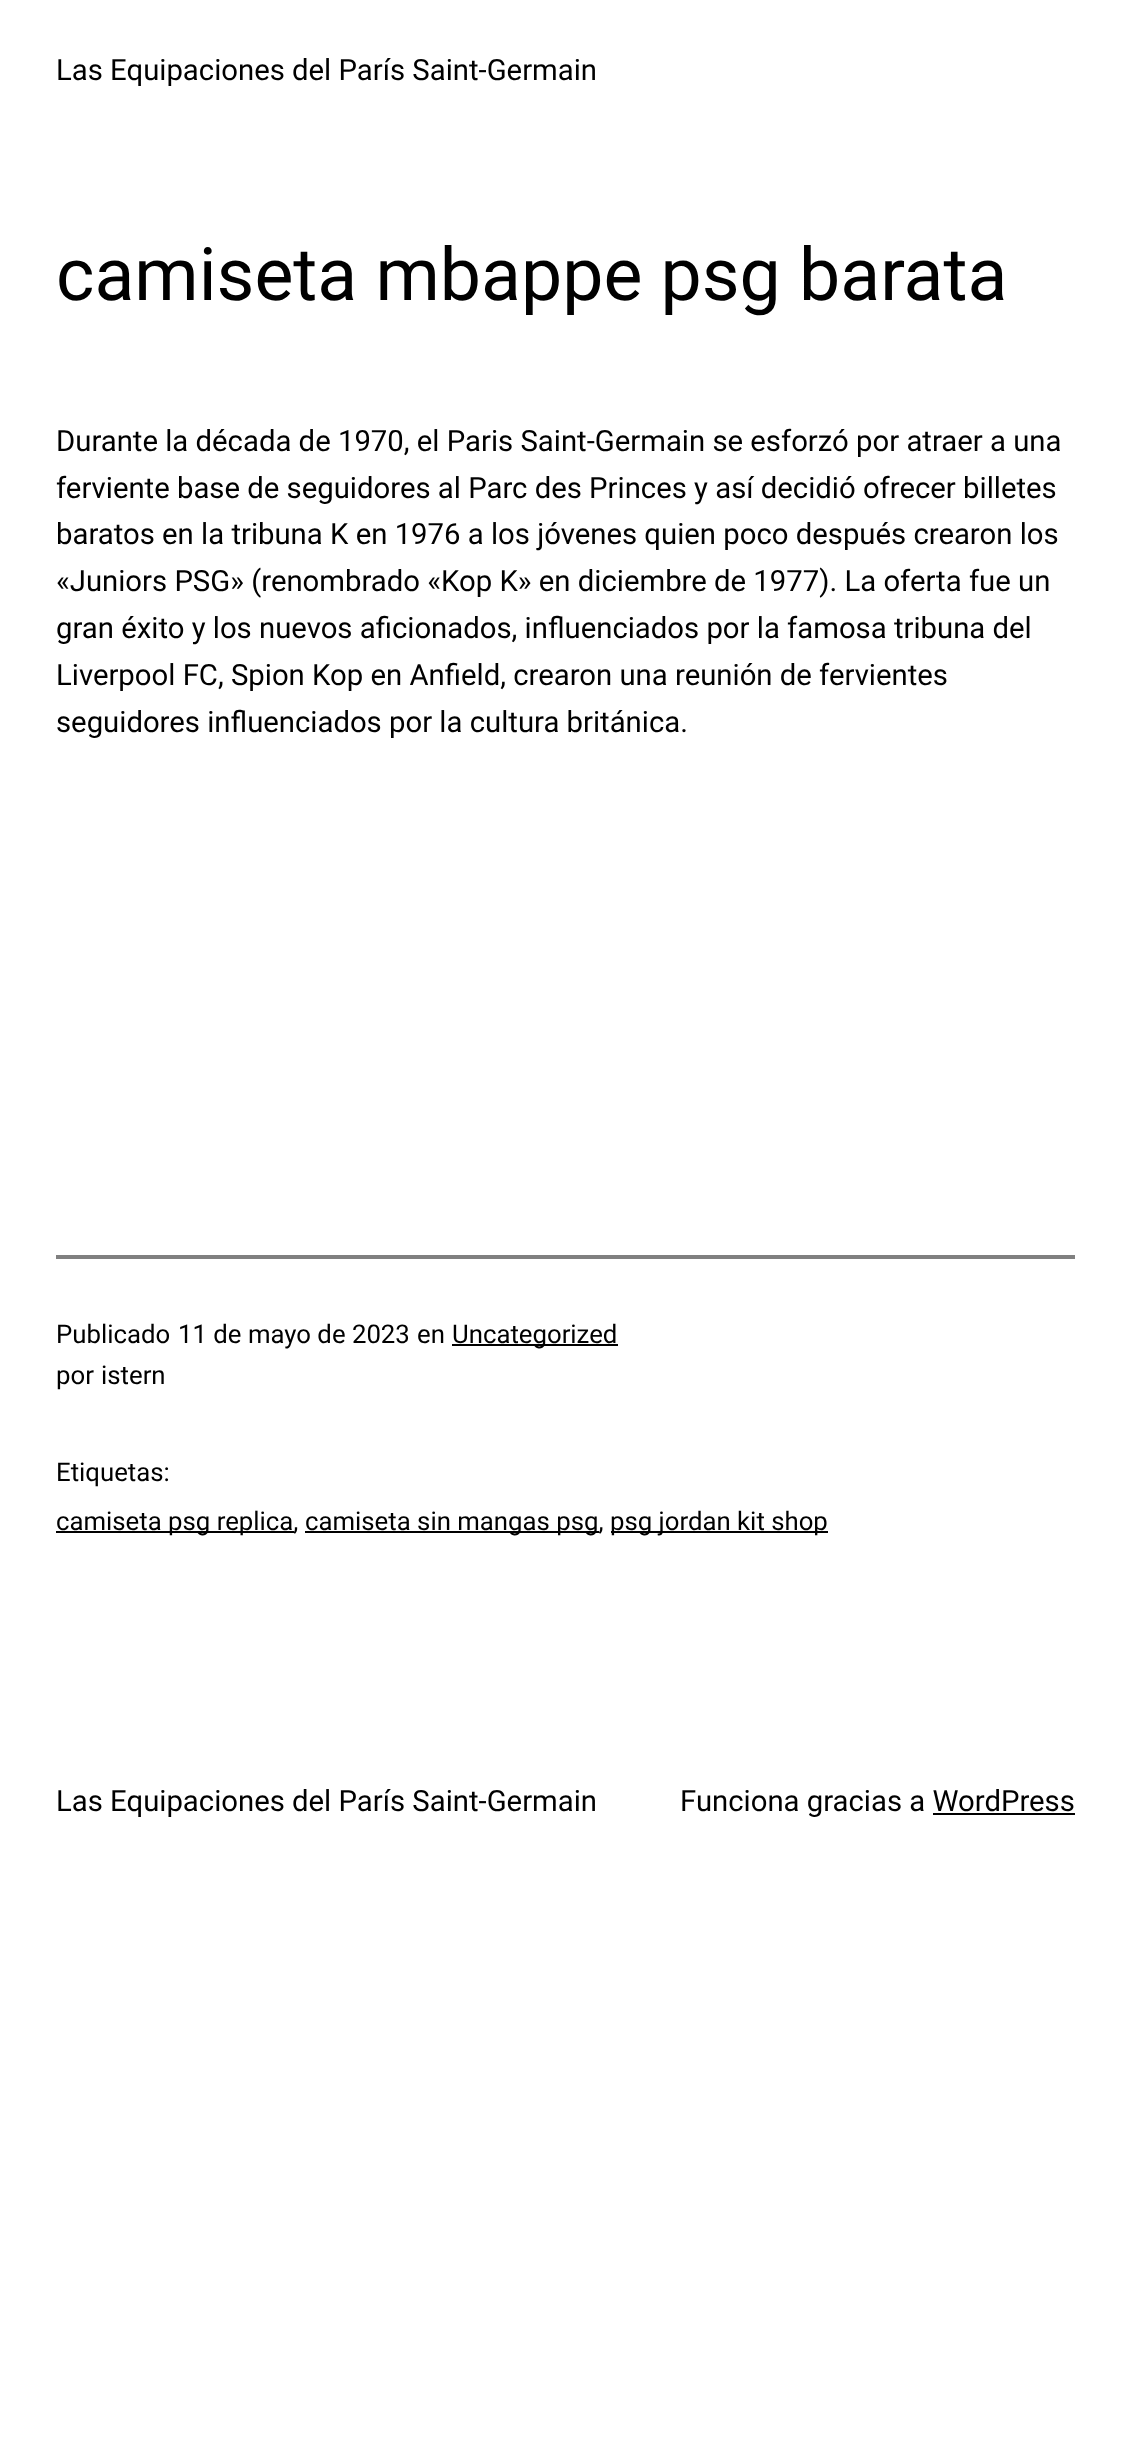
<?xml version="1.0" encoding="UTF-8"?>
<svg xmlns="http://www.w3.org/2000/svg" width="1130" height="2452">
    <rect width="100%" height="100%" fill="#FFFFFF"/>
    <text x="56" y="80" font-family="Roboto" font-size="29.3" fill="#000000">Las Equipaciones del París Saint-Germain</text>
    <text x="56" y="300" font-family="Roboto" font-size="73.4" fill="#000000">camiseta mbappe psg barata</text>
    <text font-family="Roboto" font-size="29.3" fill="#000000">
        <tspan x="56" y="451">Durante la década de 1970, el Paris Saint-Germain se esforzó por atraer a una</tspan>
        <tspan x="56" y="498">ferviente base de seguidores al Parc des Princes y así decidió ofrecer billetes</tspan>
        <tspan x="56" y="544">baratos en la tribuna K en 1976 a los jóvenes quien poco después crearon los</tspan>
        <tspan x="56" y="591">«Juniors PSG» (renombrado «Kop K» en diciembre de 1977). La oferta fue un</tspan>
        <tspan x="56" y="638">gran éxito y los nuevos aficionados, influenciados por la famosa tribuna del</tspan>
        <tspan x="56" y="685">Liverpool FC, Spion Kop en Anfield, crearon una reunión de fervientes</tspan>
        <tspan x="56" y="732">seguidores influenciados por la cultura británica.</tspan>
    </text>
    <rect x="56" y="1255" width="1019" height="4" fill="#808080"/>
    <text x="56" y="1343" font-family="Roboto" font-size="25.75" fill="#000000">Publicado</text>
    <text x="178" y="1343" font-family="Roboto" font-size="25.75" fill="#000000">11 de mayo de 2023</text>
    <text x="417" y="1343" font-family="Roboto" font-size="25.75" fill="#000000">en</text>
    <rect x="452" y="1344" width="166" height="2" fill="#000000"/>
    <text x="452" y="1343" font-family="Roboto" font-size="25.75" fill="#000000">Uncategorized</text>
    <text x="56" y="1384" font-family="Roboto" font-size="25.75" fill="#000000">por</text>
    <text x="101" y="1384" font-family="Roboto" font-size="25.75" fill="#000000">istern</text>
    <text x="56" y="1481" font-family="Roboto" font-size="25.75" fill="#000000">Etiquetas:</text>
    <rect x="56" y="1531" width="238" height="2" fill="#000000"/>
    <text x="56" y="1530" font-family="Roboto" font-size="25.75" fill="#000000">camiseta psg replica,</text>
    <rect x="305" y="1531" width="294" height="2" fill="#000000"/>
    <text x="305" y="1530" font-family="Roboto" font-size="25.75" fill="#000000">camiseta sin mangas psg,</text>
    <rect x="611" y="1531" width="217" height="2" fill="#000000"/>
    <text x="610" y="1530" font-family="Roboto" font-size="25.75" fill="#000000">psg jordan kit shop</text>
    <text x="56" y="1811" font-family="Roboto" font-size="29.3" fill="#000000">Las Equipaciones del París Saint-Germain</text>
    <text x="680" y="1811" font-family="Roboto" font-size="29.3" fill="#000000">Funciona gracias a WordPress</text>
    <rect x="933" y="1813" width="142" height="2" fill="#000000"/>
</svg>
